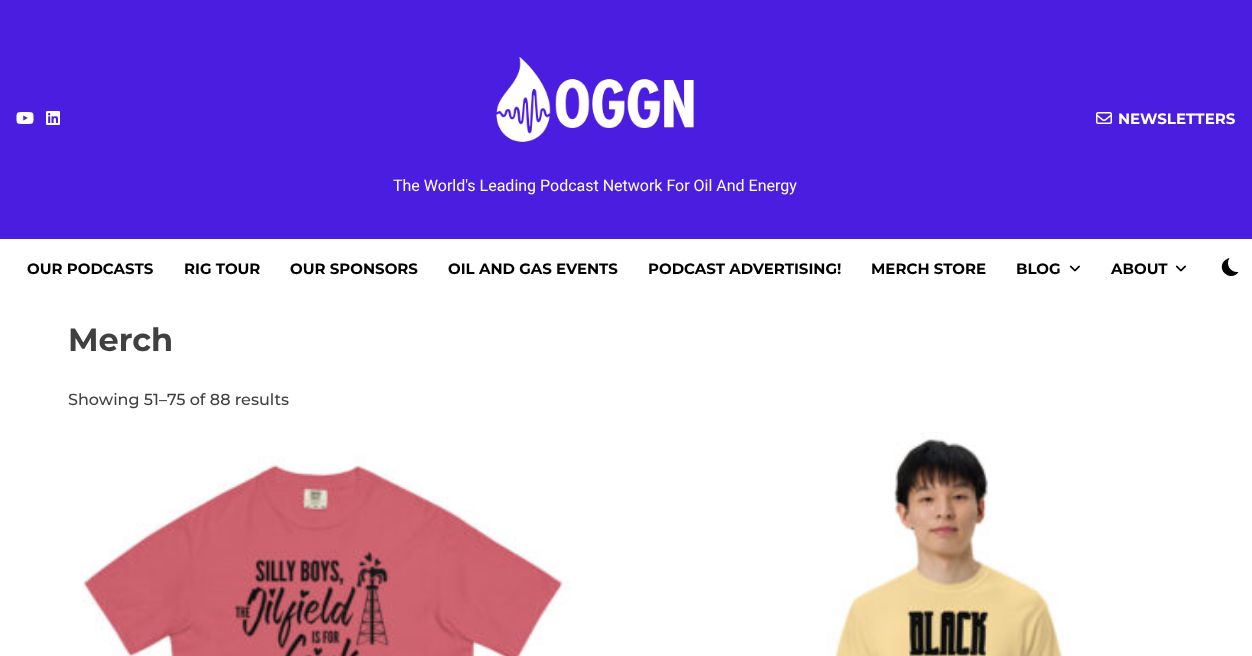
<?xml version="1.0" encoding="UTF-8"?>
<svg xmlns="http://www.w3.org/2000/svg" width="1252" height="656">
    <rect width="100%" height="100%" fill="#FFFFFF"/>
    <rect x="0" y="0" width="1252" height="239" fill="#4B1DE0"/>
    <image x="16" y="112" width="18" height="12" href="img_01.png"/>
    <image x="46" y="111" width="14" height="14" href="img_02.png"/>
    <image x="1096" y="112" width="16" height="12" href="img_03.png"/>
    <text x="1118" y="124" font-family="Montserrat" font-size="15" font-weight="700" fill="#FFFFFF">NEWSLETTERS</text>
    <image x="496" y="57" width="198" height="85" href="img_04.png"/>
    <text x="393" y="191" font-family="Roboto" font-size="16" fill="#FFFFFF">The World's Leading Podcast Network For Oil And Energy</text>
    <text x="27" y="274" font-family="Montserrat" font-size="15" font-weight="700" fill="#000000">OUR PODCASTS</text>
    <text x="184" y="274" font-family="Montserrat" font-size="15" font-weight="700" fill="#000000">RIG TOUR</text>
    <text x="290" y="274" font-family="Montserrat" font-size="15" font-weight="700" fill="#000000">OUR SPONSORS</text>
    <text x="448" y="274" font-family="Montserrat" font-size="15" font-weight="700" fill="#000000">OIL AND GAS EVENTS</text>
    <text x="648" y="274" font-family="Montserrat" font-size="15" font-weight="700" fill="#000000">PODCAST ADVERTISING!</text>
    <text x="871" y="274" font-family="Montserrat" font-size="15" font-weight="700" fill="#000000">MERCH STORE</text>
    <text x="1016" y="274" font-family="Montserrat" font-size="15" font-weight="700" fill="#000000">BLOG</text>
    <image x="1069" y="265" width="11" height="7" href="img_05.png"/>
    <text x="1111" y="274" font-family="Montserrat" font-size="15" font-weight="700" fill="#000000">ABOUT</text>
    <image x="1175" y="265" width="11" height="7" href="img_05.png"/>
    <path d="M 1238.5 272 C 1231 273 1225 265 1229.5 258 C 1226.5 258.5 1224.5 260.5 1223 262.5 C 1217.5 272.5 1232.5 281.5 1238.5 272 Z" fill="#000000"/>
    <text x="68" y="351" font-family="Montserrat" font-size="32" font-weight="700" fill="#404040">Merch</text>
    <text x="68" y="405" font-family="Montserrat" font-size="16" font-weight="500" fill="#404040">Showing 51–75 of 88 results</text>
    <image x="81" y="455" width="490" height="201" href="img_06.png"/>
    <image x="827" y="432" width="242" height="224" href="img_07.png"/>
</svg>
